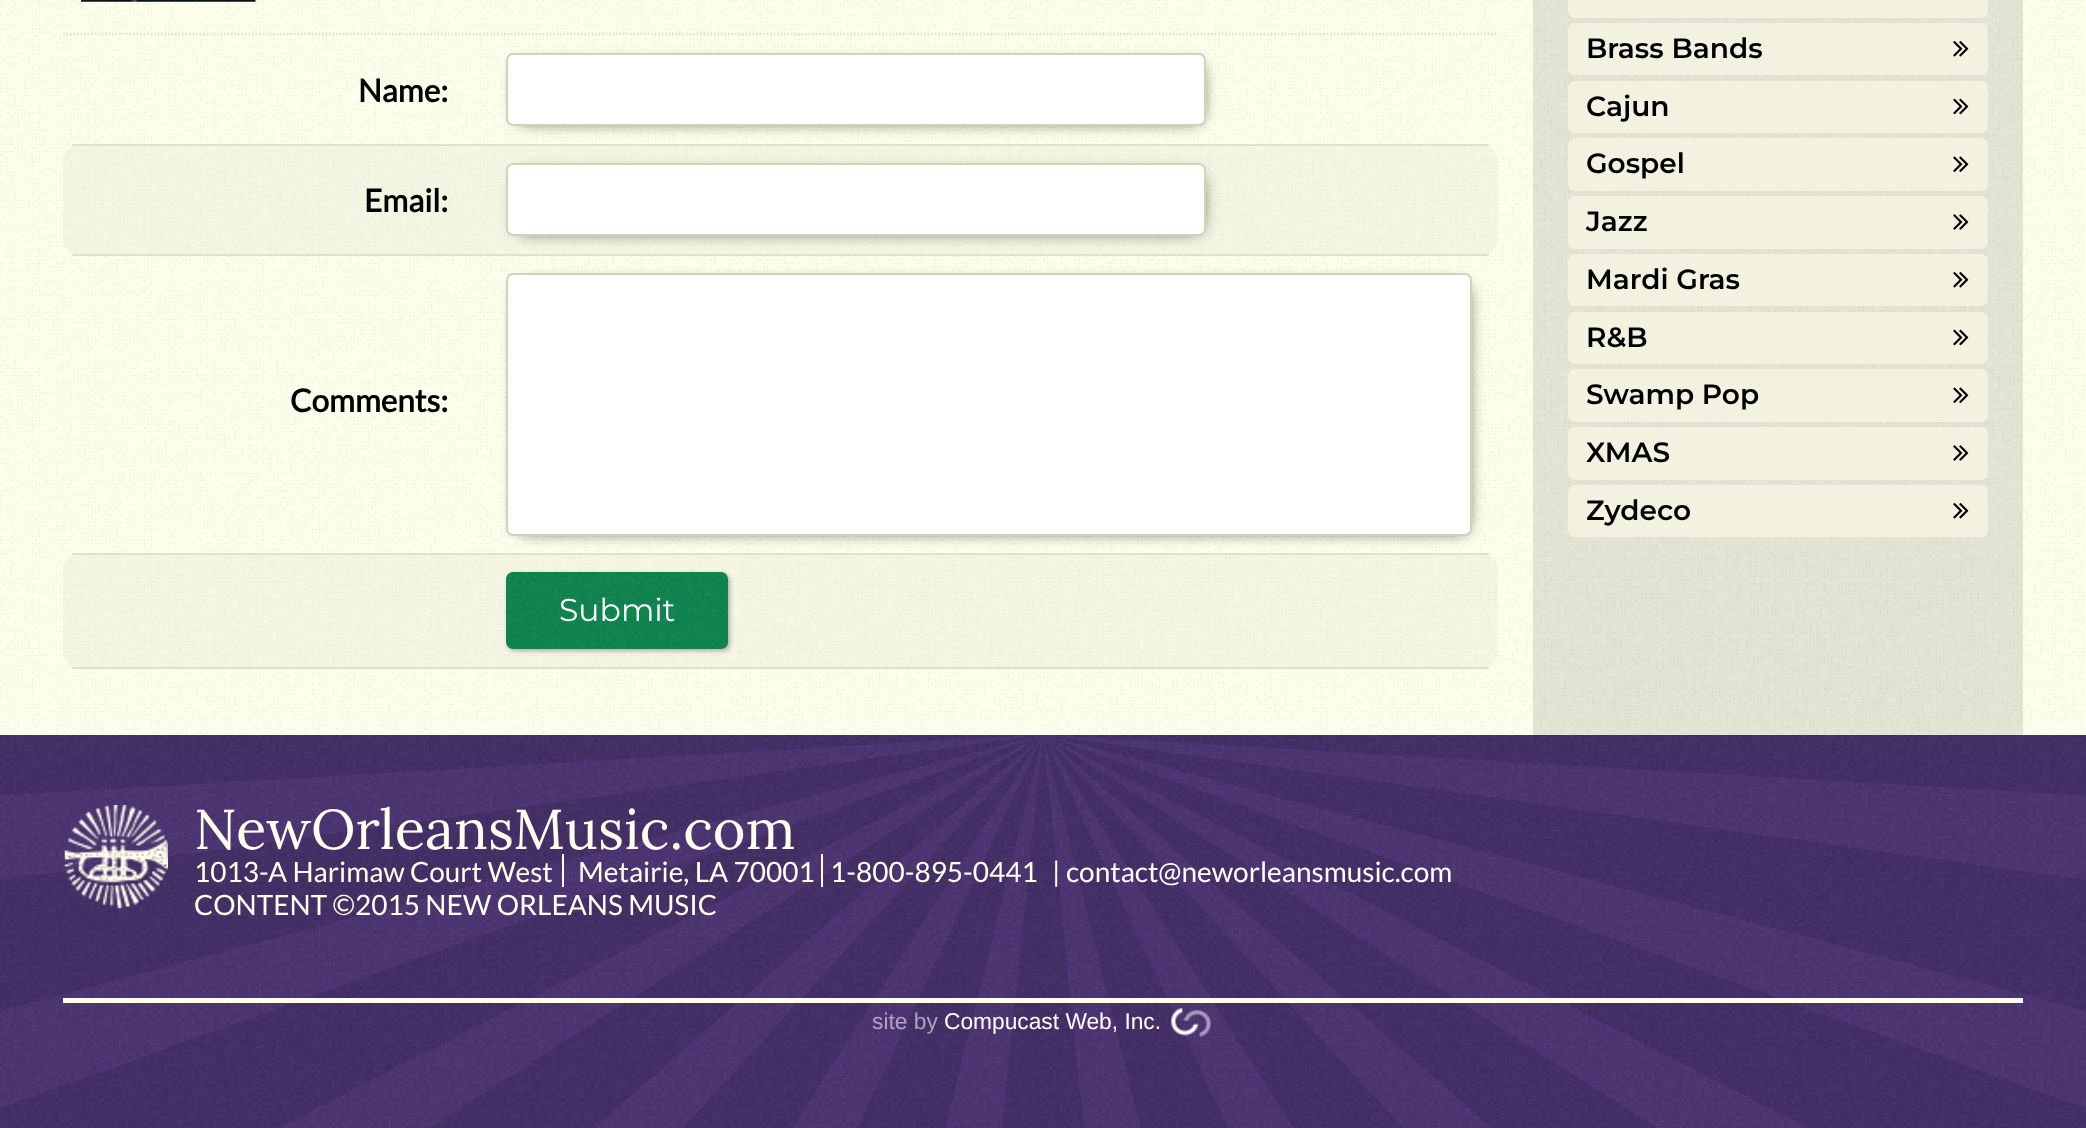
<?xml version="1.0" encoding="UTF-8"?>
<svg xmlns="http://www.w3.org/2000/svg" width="2086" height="1128">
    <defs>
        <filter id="blur1" x="-50%" y="-200%" width="200%" height="500%"><feGaussianBlur stdDeviation="9"/></filter>
        <filter id="blur2" x="-50%" y="-200%" width="200%" height="500%"><feGaussianBlur stdDeviation="2"/></filter>
    </defs>
    <rect width="100%" height="100%" fill="#FFFFED"/>
    <image x="0" y="0" width="2085" height="734" href="img_01.png"/>
    <image x="81" y="0" width="175" height="2" href="img_02.png"/>
    <path d="M 63 34 H 1498" fill="none" stroke="#E2E2CA" stroke-width="1.8" stroke-dasharray="1.75 1.75"/>
    <text x="358" y="102" font-family="Lato" font-size="31.5" font-weight="700" fill="#000000">Name:</text>
    <rect x="63" y="144" width="1435" height="112" rx="18" fill="#E4E4D1" fill-opacity="0.33"/>
    <rect x="72" y="144" width="1417" height="2" fill="#E2E2CA"/>
    <rect x="520" y="67" width="679" height="52" fill="#000000" filter="url(#blur1)"/>
    <rect x="507" y="54" width="698" height="71" rx="6" fill="#FFFFFF" stroke="#D2D2B9" stroke-width="2"/>
    <rect x="72" y="254" width="1417" height="2" fill="#E2E2CA"/>
    <text x="364" y="212" font-family="Lato" font-size="31.5" font-weight="700" fill="#000000">Email:</text>
    <rect x="520" y="177" width="679" height="52" fill="#000000" filter="url(#blur1)"/>
    <rect x="507" y="164" width="698" height="71" rx="6" fill="#FFFFFF" stroke="#D2D2B9" stroke-width="2"/>
    <text x="290" y="412" font-family="Lato" font-size="31.5" font-weight="700" fill="#000000">Comments:</text>
    <rect x="63" y="553" width="1435" height="116" rx="18" fill="#E4E4D1" fill-opacity="0.33"/>
    <rect x="72" y="553" width="1417" height="2" fill="#E2E2CA"/>
    <rect x="520" y="287" width="945" height="242" fill="#000000" filter="url(#blur1)"/>
    <rect x="507" y="274" width="964" height="261" rx="6" fill="#FFFFFF" stroke="#D2D2B9" stroke-width="2"/>
    <rect x="72" y="667" width="1417" height="2" fill="#E2E2CA"/>
    <rect x="508" y="574" width="222" height="77" rx="7" fill="#000000" fill-opacity="0.28" filter="url(#blur2)"/>
    <rect x="506" y="572" width="222" height="77" rx="7" fill="#0F844F"/>
    <image x="506" y="572" width="222" height="76" href="img_03.png"/>
    <text x="559" y="621" font-family="Montserrat" font-size="31.5" fill="#FFFFFF">Submit</text>
    <rect x="1533" y="0" width="490" height="735" fill="#E4E5D5"/>
    <image x="1533" y="1" width="489" height="734" href="img_04.png"/>
    <rect x="1568" y="-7" width="420" height="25" rx="7" fill="#F3F2E0"/>
    <rect x="1568" y="23" width="420" height="52" rx="7" fill="#F3F2E0"/>
    <text x="1586" y="58" font-family="Montserrat" font-size="28" font-weight="600" fill="#000000">Brass Bands</text>
    <image x="1953" y="41" width="16" height="16" href="img_05.png"/>
    <rect x="1568" y="81" width="420" height="52" rx="7" fill="#F3F2E0"/>
    <text x="1586" y="116" font-family="Montserrat" font-size="28" font-weight="600" fill="#000000">Cajun</text>
    <image x="1953" y="98" width="16" height="17" href="img_06.png"/>
    <rect x="1568" y="138" width="420" height="53" rx="7" fill="#F3F2E0"/>
    <text x="1586" y="173" font-family="Montserrat" font-size="28" font-weight="600" fill="#000000">Gospel</text>
    <image x="1953" y="156" width="16" height="16" href="img_07.png"/>
    <rect x="1568" y="196" width="420" height="53" rx="7" fill="#F3F2E0"/>
    <text x="1586" y="231" font-family="Montserrat" font-size="28" font-weight="600" fill="#000000">Jazz</text>
    <image x="1953" y="214" width="16" height="16" href="img_08.png"/>
    <rect x="1568" y="254" width="420" height="52" rx="7" fill="#F3F2E0"/>
    <text x="1586" y="289" font-family="Montserrat" font-size="28" font-weight="600" fill="#000000">Mardi Gras</text>
    <image x="1953" y="272" width="16" height="16" href="img_05.png"/>
    <rect x="1568" y="312" width="420" height="52" rx="7" fill="#F3F2E0"/>
    <text x="1586" y="347" font-family="Montserrat" font-size="28" font-weight="600" fill="#000000">R&amp;B</text>
    <image x="1953" y="329" width="16" height="17" href="img_06.png"/>
    <rect x="1568" y="369" width="420" height="53" rx="7" fill="#F3F2E0"/>
    <text x="1586" y="404" font-family="Montserrat" font-size="28" font-weight="600" fill="#000000">Swamp Pop</text>
    <image x="1953" y="387" width="16" height="16" href="img_07.png"/>
    <rect x="1568" y="427" width="420" height="53" rx="7" fill="#F3F2E0"/>
    <text x="1586" y="462" font-family="Montserrat" font-size="28" font-weight="600" fill="#000000">XMAS</text>
    <image x="1953" y="445" width="16" height="16" href="img_08.png"/>
    <rect x="1568" y="485" width="420" height="52" rx="7" fill="#F3F2E0"/>
    <text x="1586" y="520" font-family="Montserrat" font-size="28" font-weight="600" fill="#000000">Zydeco</text>
    <image x="1953" y="503" width="16" height="16" href="img_05.png"/>
    <rect x="0" y="735" width="2086" height="393" fill="#4C3472"/>
    <image x="0" y="735" width="2085" height="393" href="img_09.png"/>
    <image x="0" y="735" width="2086" height="393" href="img_10.png"/>
    <rect x="63" y="998" width="1960" height="5" fill="#FFFFED"/>
    <image x="64" y="805" width="104" height="104" href="img_11.png"/>
    <text x="194" y="849" font-family="Lora" font-size="56" fill="#FFFFED">NewOrleansMusic.com</text>
    <rect x="562" y="854" width="2" height="33" fill="#FFFFED"/>
    <text x="194" y="882" font-family="Lato" font-size="28" fill="#FFFFED">1013-A Harimaw Court West</text>
    <text x="578" y="882" font-family="Lato" font-size="28" fill="#FFFFED">Metairie, LA 70001</text>
    <text x="830" y="882" font-family="Lato" font-size="28" fill="#FFFFED">1-800-895-0441</text>
    <rect x="821" y="854" width="2" height="33" fill="#FFFFED"/>
    <text x="1052" y="882" font-family="Lato" font-size="28" fill="#FFFFED">|</text>
    <text x="1066" y="882" font-family="Lato" font-size="28" fill="#FFFFFF">contact@neworleansmusic.com</text>
    <text x="194" y="915" font-family="Lato" font-size="28" fill="#FFFFED">CONTENT ©2015 NEW ORLEANS MUSIC</text>
    <text x="872" y="1029" font-family="Liberation Sans" font-size="22.75" fill="#ADA3BD">site by</text>
    <image x="1171" y="1008" width="40" height="29" href="img_12.png"/>
    <text x="944" y="1029" font-family="Liberation Sans" font-size="22.75" fill="#FFFFFF">Compucast Web, Inc.</text>
</svg>
